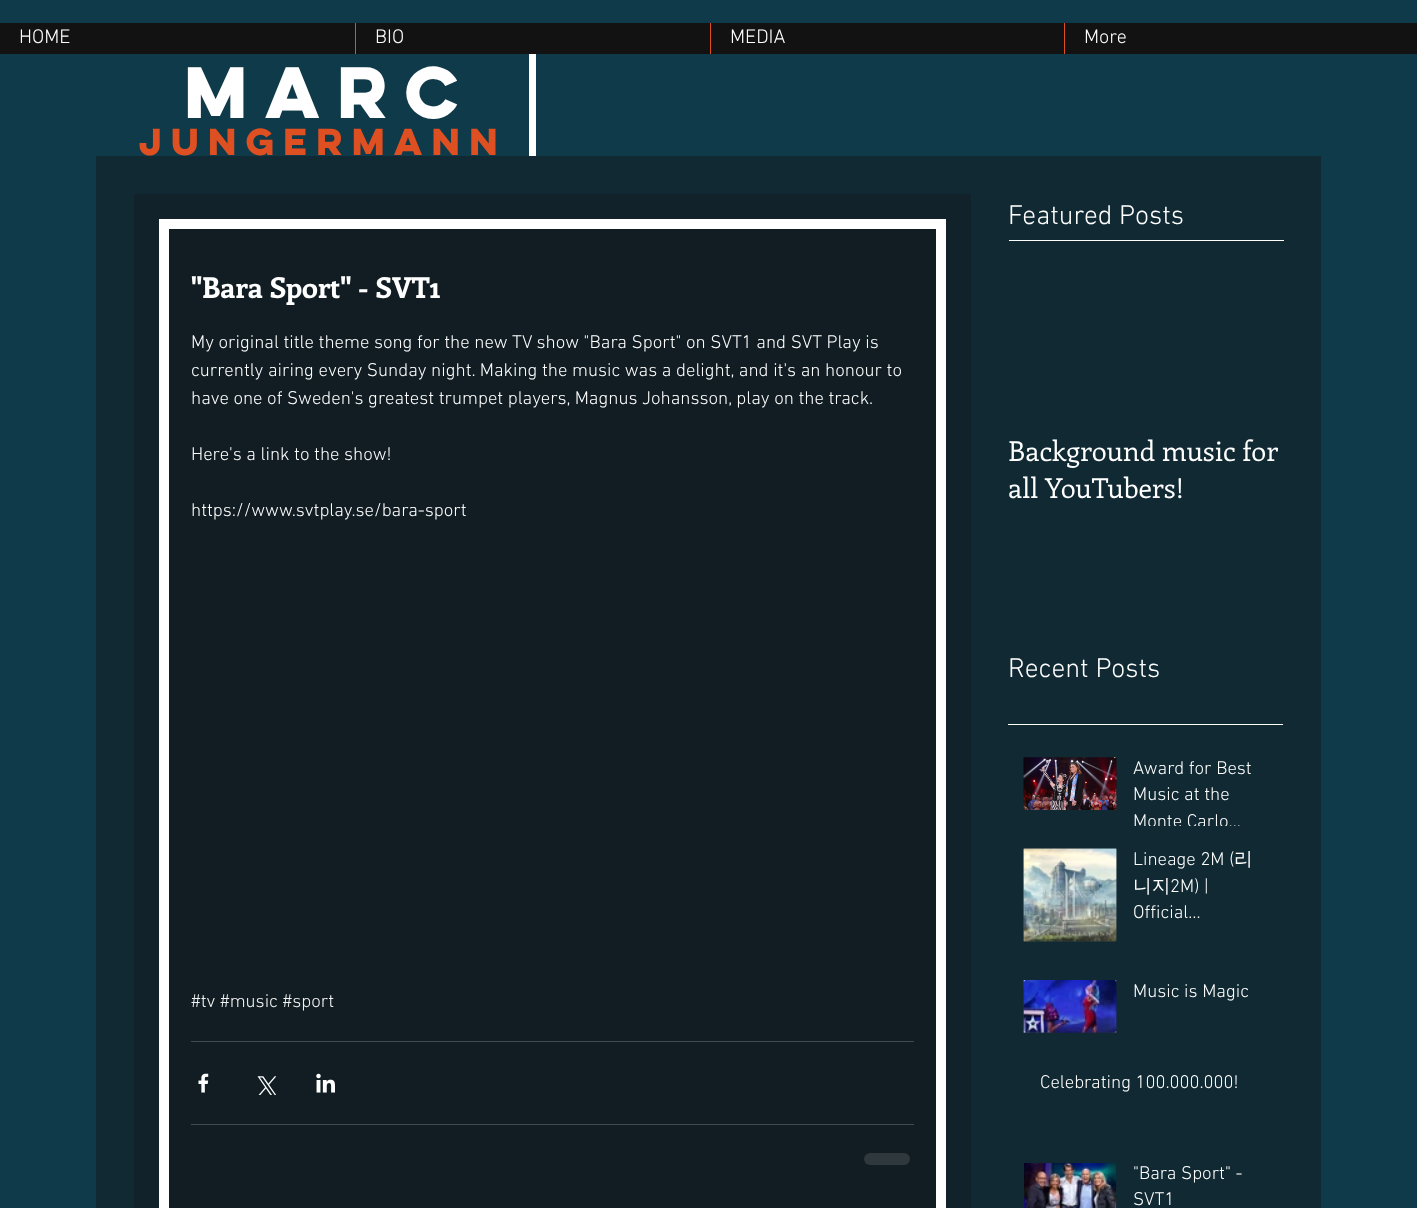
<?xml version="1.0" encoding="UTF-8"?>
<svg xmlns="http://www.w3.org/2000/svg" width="1417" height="1208">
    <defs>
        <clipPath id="clip1"><rect x="1133" y="756" width="135" height="70"/></clipPath>
    </defs>
    <rect width="100%" height="100%" fill="#0F3A49"/>
    <rect x="0" y="23" width="1417" height="31" fill="#121212"/>
    <text x="19" y="43" font-family="'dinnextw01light'" font-size="20" font-weight="300" fill="#FFFFFF">HOME</text>
    <rect x="355" y="23" width="1" height="31" fill="#DE5021"/>
    <text x="375" y="43" font-family="'dinnextw01light'" font-size="20" font-weight="300" fill="#FFFFFF">BIO</text>
    <rect x="710" y="23" width="1" height="31" fill="#DE5021"/>
    <text x="730" y="43" font-family="'dinnextw01light'" font-size="20" font-weight="300" fill="#FFFFFF">MEDIA</text>
    <rect x="1064" y="23" width="1" height="31" fill="#DE5021"/>
    <text x="1084" y="43" font-family="'dinnextw01light'" font-size="20" font-weight="300" fill="#FFFFFF">More</text>
    <rect x="529" y="54" width="7" height="102" fill="#FFFFFF"/>
    <text x="184" y="118" font-family="'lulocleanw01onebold'" font-size="65" font-weight="700" letter-spacing="3" fill="#FFFFFF">MARC</text>
    <text x="139" y="155" font-family="'lulocleanw01onebold'" font-size="33.75" font-weight="700" letter-spacing="1.75" fill="#DE5021">JUNGERMANN</text>
    <rect x="96" y="156" width="1225" height="1052" fill="#102933"/>
    <text x="1008" y="224" font-family="'dinnextw01light'" font-size="27.5" font-weight="300" fill="#FFFFFF">Featured Posts</text>
    <rect x="1009" y="240" width="275" height="1" fill="#FFFFFF"/>
    <rect x="134" y="194" width="837" height="1014" fill="#11222A"/>
    <rect x="164" y="224" width="777" height="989" fill="#111D23" stroke="#FFFFFF" stroke-width="10"/>
    <text x="191" y="298" font-family="Enriqueta" font-size="28.75" font-weight="700" fill="#FFFFFF">"Bara Sport" - SVT1</text>
    <text font-family="'dinnextw01light'" font-size="18.75" font-weight="300" fill="#FFFFFF">
        <tspan x="191" y="348">My original title theme song for the new TV show "Bara Sport" on SVT1 and SVT Play is</tspan>
        <tspan x="191" y="376">currently airing every Sunday night. Making the music was a delight, and it's an honour to</tspan>
        <tspan x="191" y="404">have one of Sweden's greatest trumpet players, Magnus Johansson, play on the track.</tspan>
    </text>
    <text x="191" y="460" font-family="'dinnextw01light'" font-size="18.75" font-weight="300" fill="#FFFFFF">Here's a link to the show!</text>
    <text x="191" y="516" font-family="'dinnextw01light'" font-size="18.75" font-weight="300" fill="#FFFFFF">https://www.svtplay.se/bara-sport</text>
    <text x="191" y="1007" font-family="'dinnextw01light'" font-size="18.75" font-weight="300" fill="#F5F5F5">#tv #music #sport</text>
    <rect x="191" y="1041" width="723" height="1" fill="#414A4F"/>
    <image x="198" y="1073" width="11" height="20" href="img_01.png"/>
    <image x="257" y="1076" width="19" height="19" href="img_02.png"/>
    <image x="316" y="1073" width="19" height="20" href="img_03.png"/>
    <rect x="191" y="1124" width="723" height="1" fill="#414A4F"/>
    <rect x="864" y="1153" width="46" height="12" rx="6" fill="#2E383D"/>
    <text font-family="Enriqueta" font-size="27.5" fill="#FFFFFF">
        <tspan x="1008" y="461">Background music for</tspan>
        <tspan x="1008" y="498">all YouTubers!</tspan>
    </text>
    <text x="1008" y="677" font-family="'dinnextw01light'" font-size="27.5" font-weight="300" fill="#FFFFFF">Recent Posts</text>
    <rect x="1008" y="724" width="275" height="1" fill="#FFFFFF"/>
    <image x="1023" y="757" width="94" height="53" href="img_04.png"/>
    <image x="1023" y="757" width="94" height="53" href="img_05.png"/>
    <text font-family="'dinnextw01light'" font-size="18.75" font-weight="300" fill="#FFFFFF">
        <tspan x="1133" y="774">Award for Best</tspan>
        <tspan x="1133" y="800">Music at the</tspan>
    </text>
    <g clip-path="url(#clip1)">
        <text x="1133" y="827" font-family="'dinnextw01light'" font-size="18.75" font-weight="300" fill="#FFFFFF">Monte Carlo…</text>
    </g>
    <image x="1023" y="848" width="94" height="94" href="img_06.png"/>
    <image x="1023" y="848" width="94" height="94" href="img_07.png"/>
    <text x="1133" y="865" font-family="'dinnextw01light'" font-size="18.75" font-weight="300" fill="#FFFFFF">Lineage 2M (</text>
    <text x="1234" y="865" font-family="WenQuanYi Zen Hei" font-size="18.75" font-weight="500" fill="#FFFFFF">리</text>
    <text x="1133" y="892" font-family="WenQuanYi Zen Hei" font-size="18.75" font-weight="500" fill="#FFFFFF">니지</text>
    <text x="1170" y="892" font-family="'dinnextw01light'" font-size="18.75" font-weight="300" fill="#FFFFFF">2M) |</text>
    <text x="1133" y="918" font-family="'dinnextw01light'" font-size="18.75" font-weight="300" fill="#FFFFFF">Official…</text>
    <image x="1023" y="980" width="94" height="53" href="img_08.png"/>
    <image x="1023" y="980" width="94" height="53" href="img_09.png"/>
    <text x="1133" y="997" font-family="'dinnextw01light'" font-size="18.75" font-weight="300" fill="#FFFFFF">Music is Magic</text>
    <text x="1040" y="1088" font-family="'dinnextw01light'" font-size="18.75" font-weight="300" fill="#FFFFFF">Celebrating 100.000.000!</text>
    <image x="1024" y="1163" width="92" height="45" href="img_10.png"/>
    <image x="1116" y="1163" width="1" height="45" href="img_11.png"/>
    <text font-family="'dinnextw01light'" font-size="18.75" font-weight="300" fill="#FFFFFF">
        <tspan x="1133" y="1179">"Bara Sport" -</tspan>
        <tspan x="1133" y="1205">SVT1</tspan>
    </text>
</svg>
